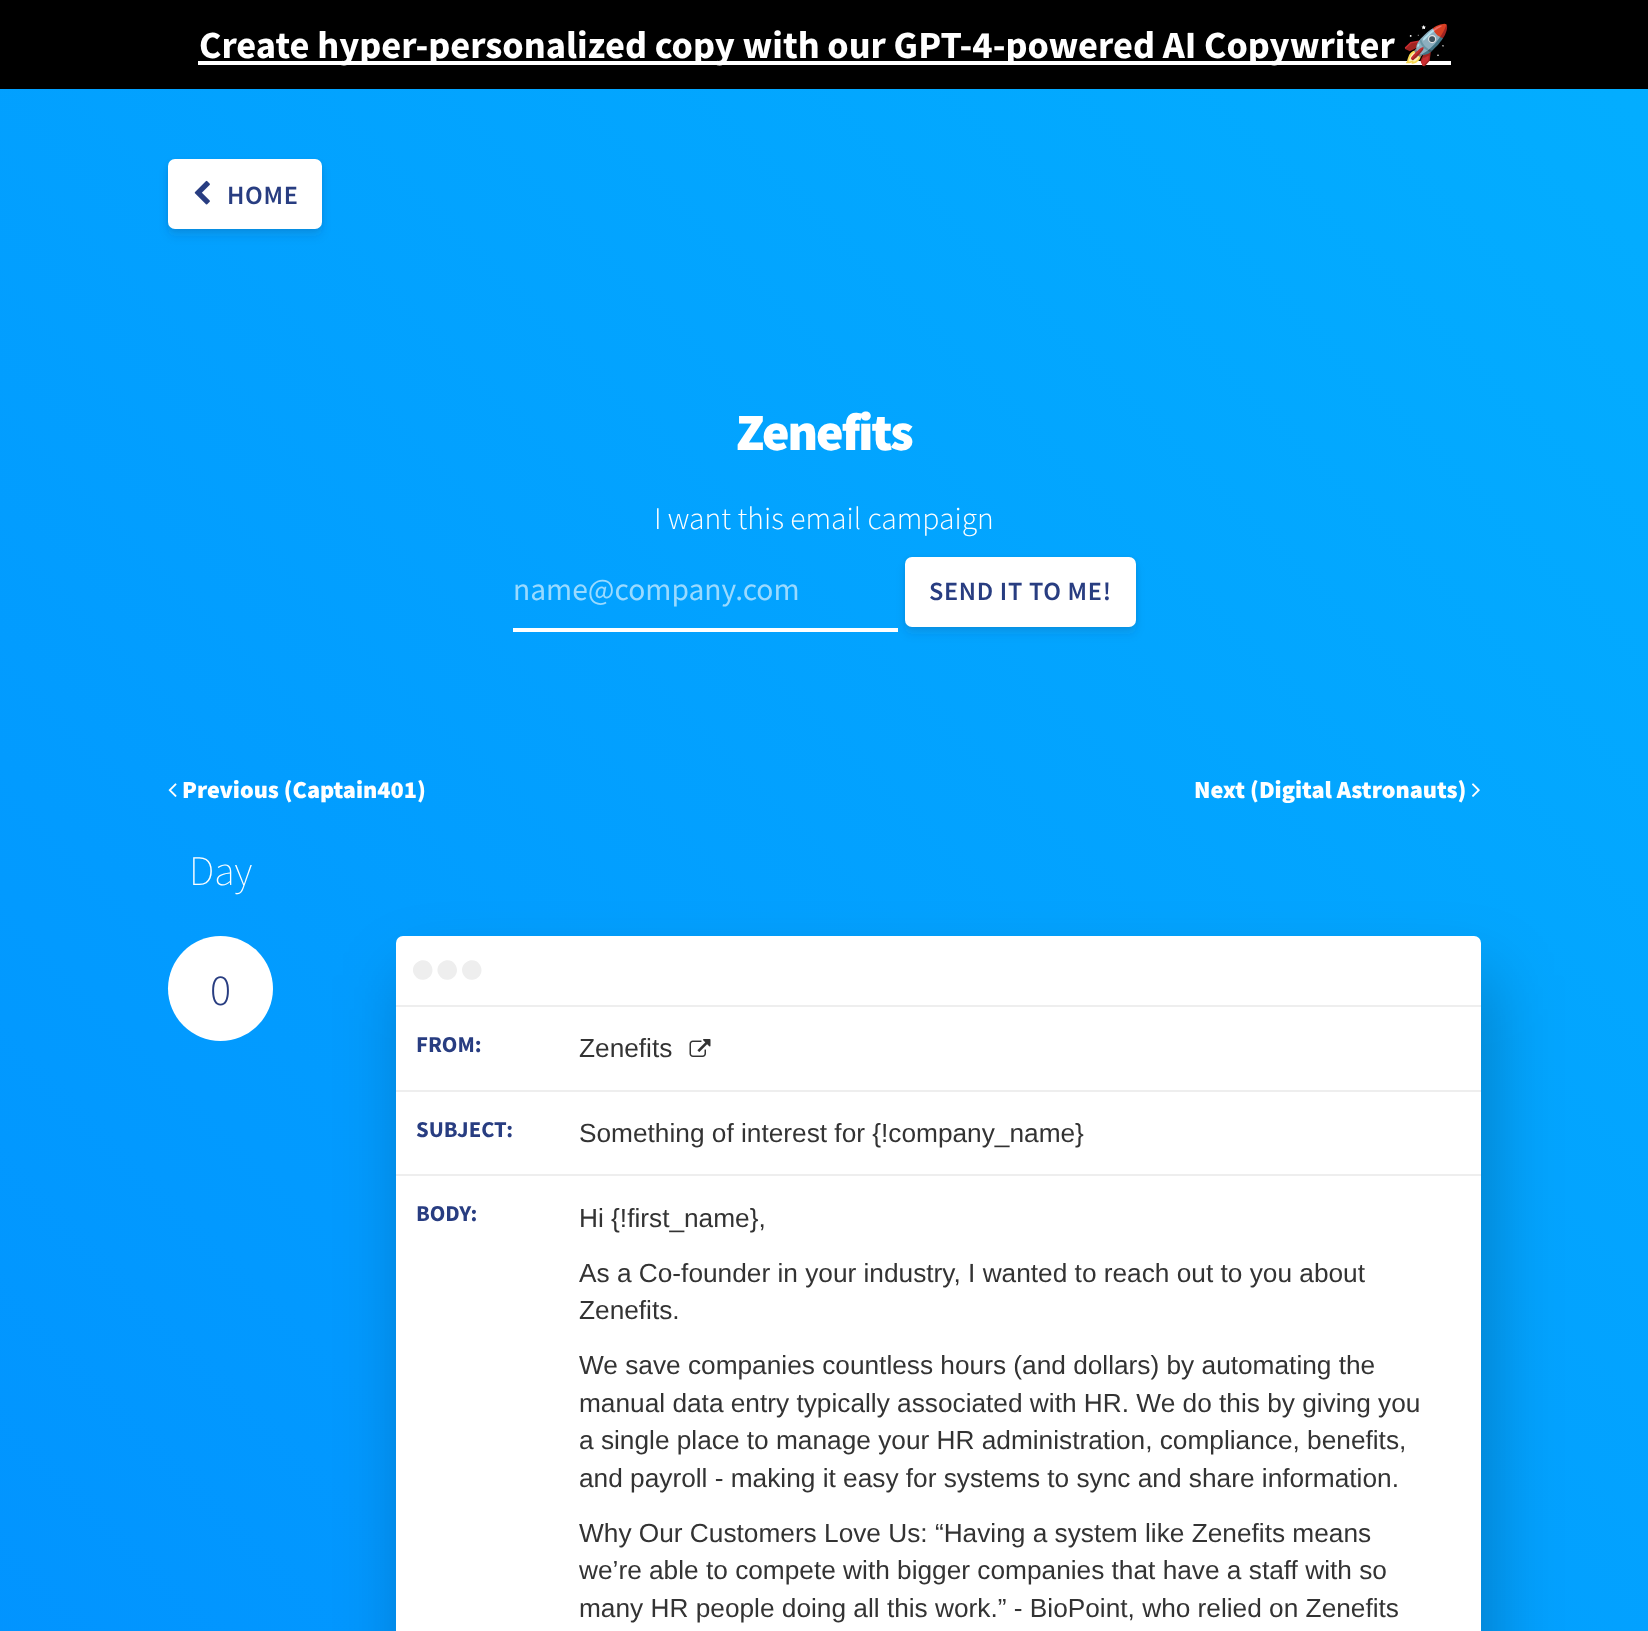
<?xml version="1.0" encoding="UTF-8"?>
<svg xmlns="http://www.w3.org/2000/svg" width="1648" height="1631">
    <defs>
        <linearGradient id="g1" gradientUnits="userSpaceOnUse" x1="-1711" y1="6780" x2="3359" y2="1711"><stop offset="0.25" stop-color="#0072FF"/><stop offset="1" stop-color="#03AEFF"/></linearGradient>
        <filter id="blur1" x="-50%" y="-200%" width="200%" height="500%"><feGaussianBlur stdDeviation="2.5"/></filter>
        <filter id="blur2" x="-50%" y="-200%" width="200%" height="500%"><feGaussianBlur stdDeviation="5"/></filter>
        <filter id="blur3" x="-50%" y="-200%" width="200%" height="500%"><feGaussianBlur stdDeviation="35"/></filter>
    </defs>
    <rect width="100%" height="100%" fill="#FFFFFF"/>
    <rect x="0" y="89" width="1648" height="1542" fill="url(#g1)"/>
    <rect x="0" y="0" width="1648" height="89" fill="#000000"/>
    <rect x="198" y="61" width="1253" height="4" fill="#FFFFFF"/>
    <text x="199" y="58" font-family="Source Sans Pro" font-size="38.5" font-weight="700" fill="#FFFFFF">Create hyper-personalized copy with our GPT-4-powered AI Copywriter</text>
    <text x="1402" y="58" font-family="Noto Color Emoji" font-size="38.5" font-weight="700" fill="#FFFFFF">🚀</text>
    <rect x="168" y="161" width="154" height="70" rx="7" fill="#000000" fill-opacity="0.08" filter="url(#blur1)"/>
    <rect x="168" y="166" width="154" height="70" rx="7" fill="#32325D" fill-opacity="0.11" filter="url(#blur2)"/>
    <rect x="168" y="159" width="154" height="70" rx="7" fill="#FFFFFF"/>
    <image x="194" y="180" width="16" height="25" href="img_01.png"/>
    <text x="227" y="204" font-family="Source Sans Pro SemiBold" font-size="26.25" font-weight="600" letter-spacing="0.7" fill="#283D81">HOME</text>
    <text x="736" y="450" font-family="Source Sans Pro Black" font-size="52.5" font-weight="900" letter-spacing="-2" fill="#FFFFFF">Zenefits</text>
    <text x="654" y="529" font-family="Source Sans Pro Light" font-size="31.5" font-weight="300" fill="#FFFFFF">I want this email campaign</text>
    <rect x="513" y="628" width="385" height="4" fill="#FFFFFF"/>
    <text x="513" y="600" font-family="Source Sans Pro" font-size="31.5" fill="#9ADAFF">name@company.com</text>
    <rect x="905" y="558" width="231" height="70" rx="7" fill="#000000" fill-opacity="0.08" filter="url(#blur1)"/>
    <rect x="905" y="564" width="231" height="70" rx="7" fill="#32325D" fill-opacity="0.11" filter="url(#blur2)"/>
    <rect x="905" y="557" width="231" height="70" rx="7" fill="#FFFFFF"/>
    <text x="929" y="600" font-family="Source Sans Pro SemiBold" font-size="26.25" font-weight="600" letter-spacing="0.7" fill="#283D81">SEND IT TO ME!</text>
    <image x="168" y="783" width="9" height="14" href="img_02.png"/>
    <text x="182" y="798" font-family="Source Sans Pro Black" font-size="24.5" font-weight="900" fill="#FFFFFF">Previous (Captain401)</text>
    <text x="1194" y="798" font-family="Source Sans Pro Black" font-size="24.5" font-weight="900" fill="#FFFFFF">Next (Digital Astronauts)</text>
    <image x="1472" y="783" width="8" height="14" href="img_03.png"/>
    <text x="189" y="885" font-family="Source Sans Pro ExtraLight" font-size="42" font-weight="200" fill="#FFFFFF">Day</text>
    <circle cx="220.5" cy="988.5" r="52.5" fill="#FFFFFF"/>
    <text x="210" y="1005" font-family="Source Sans Pro Light" font-size="44" font-weight="300" fill="#283D81">0</text>
    <rect x="406" y="975" width="1085" height="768" rx="7" fill="#000000" fill-opacity="0.22" filter="url(#blur3)"/>
    <rect x="396" y="936" width="1085" height="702" rx="7" fill="#FFFFFF"/>
    <path d="M 431 965 C 437.5 976.5 421 986 414.5 975 C 408 964 424.5 954 431 965 Z M 455.5 965 C 462 976.5 445.5 986 439 975 C 432.5 964 449 954 455.5 965 Z" fill="#EEEEEE"/>
    <path d="M 480 965 C 486.5 976.5 470 986 463.5 975 C 457 964 473.5 954 480 965 Z" fill="#EEEEEE"/>
    <rect x="396" y="1005" width="1085" height="2" fill="#EEEEEE"/>
    <rect x="396" y="1090" width="1085" height="2" fill="#EEEEEE"/>
    <text x="416" y="1052" font-family="Source Sans Pro" font-size="22.75" font-weight="700" fill="#283D81">FROM:</text>
    <text x="579" y="1057" font-family="Liberation Sans" font-size="26.25" fill="#333333">Zenefits</text>
    <image x="689" y="1039" width="22" height="18" href="img_04.png"/>
    <rect x="396" y="1174" width="1085" height="2" fill="#EEEEEE"/>
    <text x="416" y="1137" font-family="Source Sans Pro" font-size="22.75" font-weight="700" fill="#283D81">SUBJECT:</text>
    <text x="579" y="1142" font-family="Liberation Sans" font-size="26.25" fill="#333333">Something of interest for {!company_name}</text>
    <text x="416" y="1221" font-family="Source Sans Pro" font-size="22.75" font-weight="700" fill="#283D81">BODY:</text>
    <text x="579" y="1227" font-family="Liberation Sans" font-size="26.25" fill="#333333">Hi {!first_name},</text>
    <text font-family="Liberation Sans" font-size="26.25" fill="#333333">
        <tspan x="579" y="1282">As a Co-founder in your industry, I wanted to reach out to you about</tspan>
        <tspan x="579" y="1319">Zenefits.</tspan>
    </text>
    <text font-family="Liberation Sans" font-size="26.25" fill="#333333">
        <tspan x="579" y="1374">We save companies countless hours (and dollars) by automating the</tspan>
        <tspan x="579" y="1412">manual data entry typically associated with HR. We do this by giving you</tspan>
        <tspan x="579" y="1449">a single place to manage your HR administration, compliance, benefits,</tspan>
        <tspan x="579" y="1487">and payroll - making it easy for systems to sync and share information.</tspan>
    </text>
    <text font-family="Liberation Sans" font-size="26.25" fill="#333333">
        <tspan x="579" y="1542">Why Our Customers Love Us: “Having a system like Zenefits means</tspan>
        <tspan x="579" y="1579">we’re able to compete with bigger companies that have a staff with so</tspan>
        <tspan x="579" y="1617">many HR people doing all this work.” - BioPoint, who relied on Zenefits</tspan>
    </text>
</svg>
